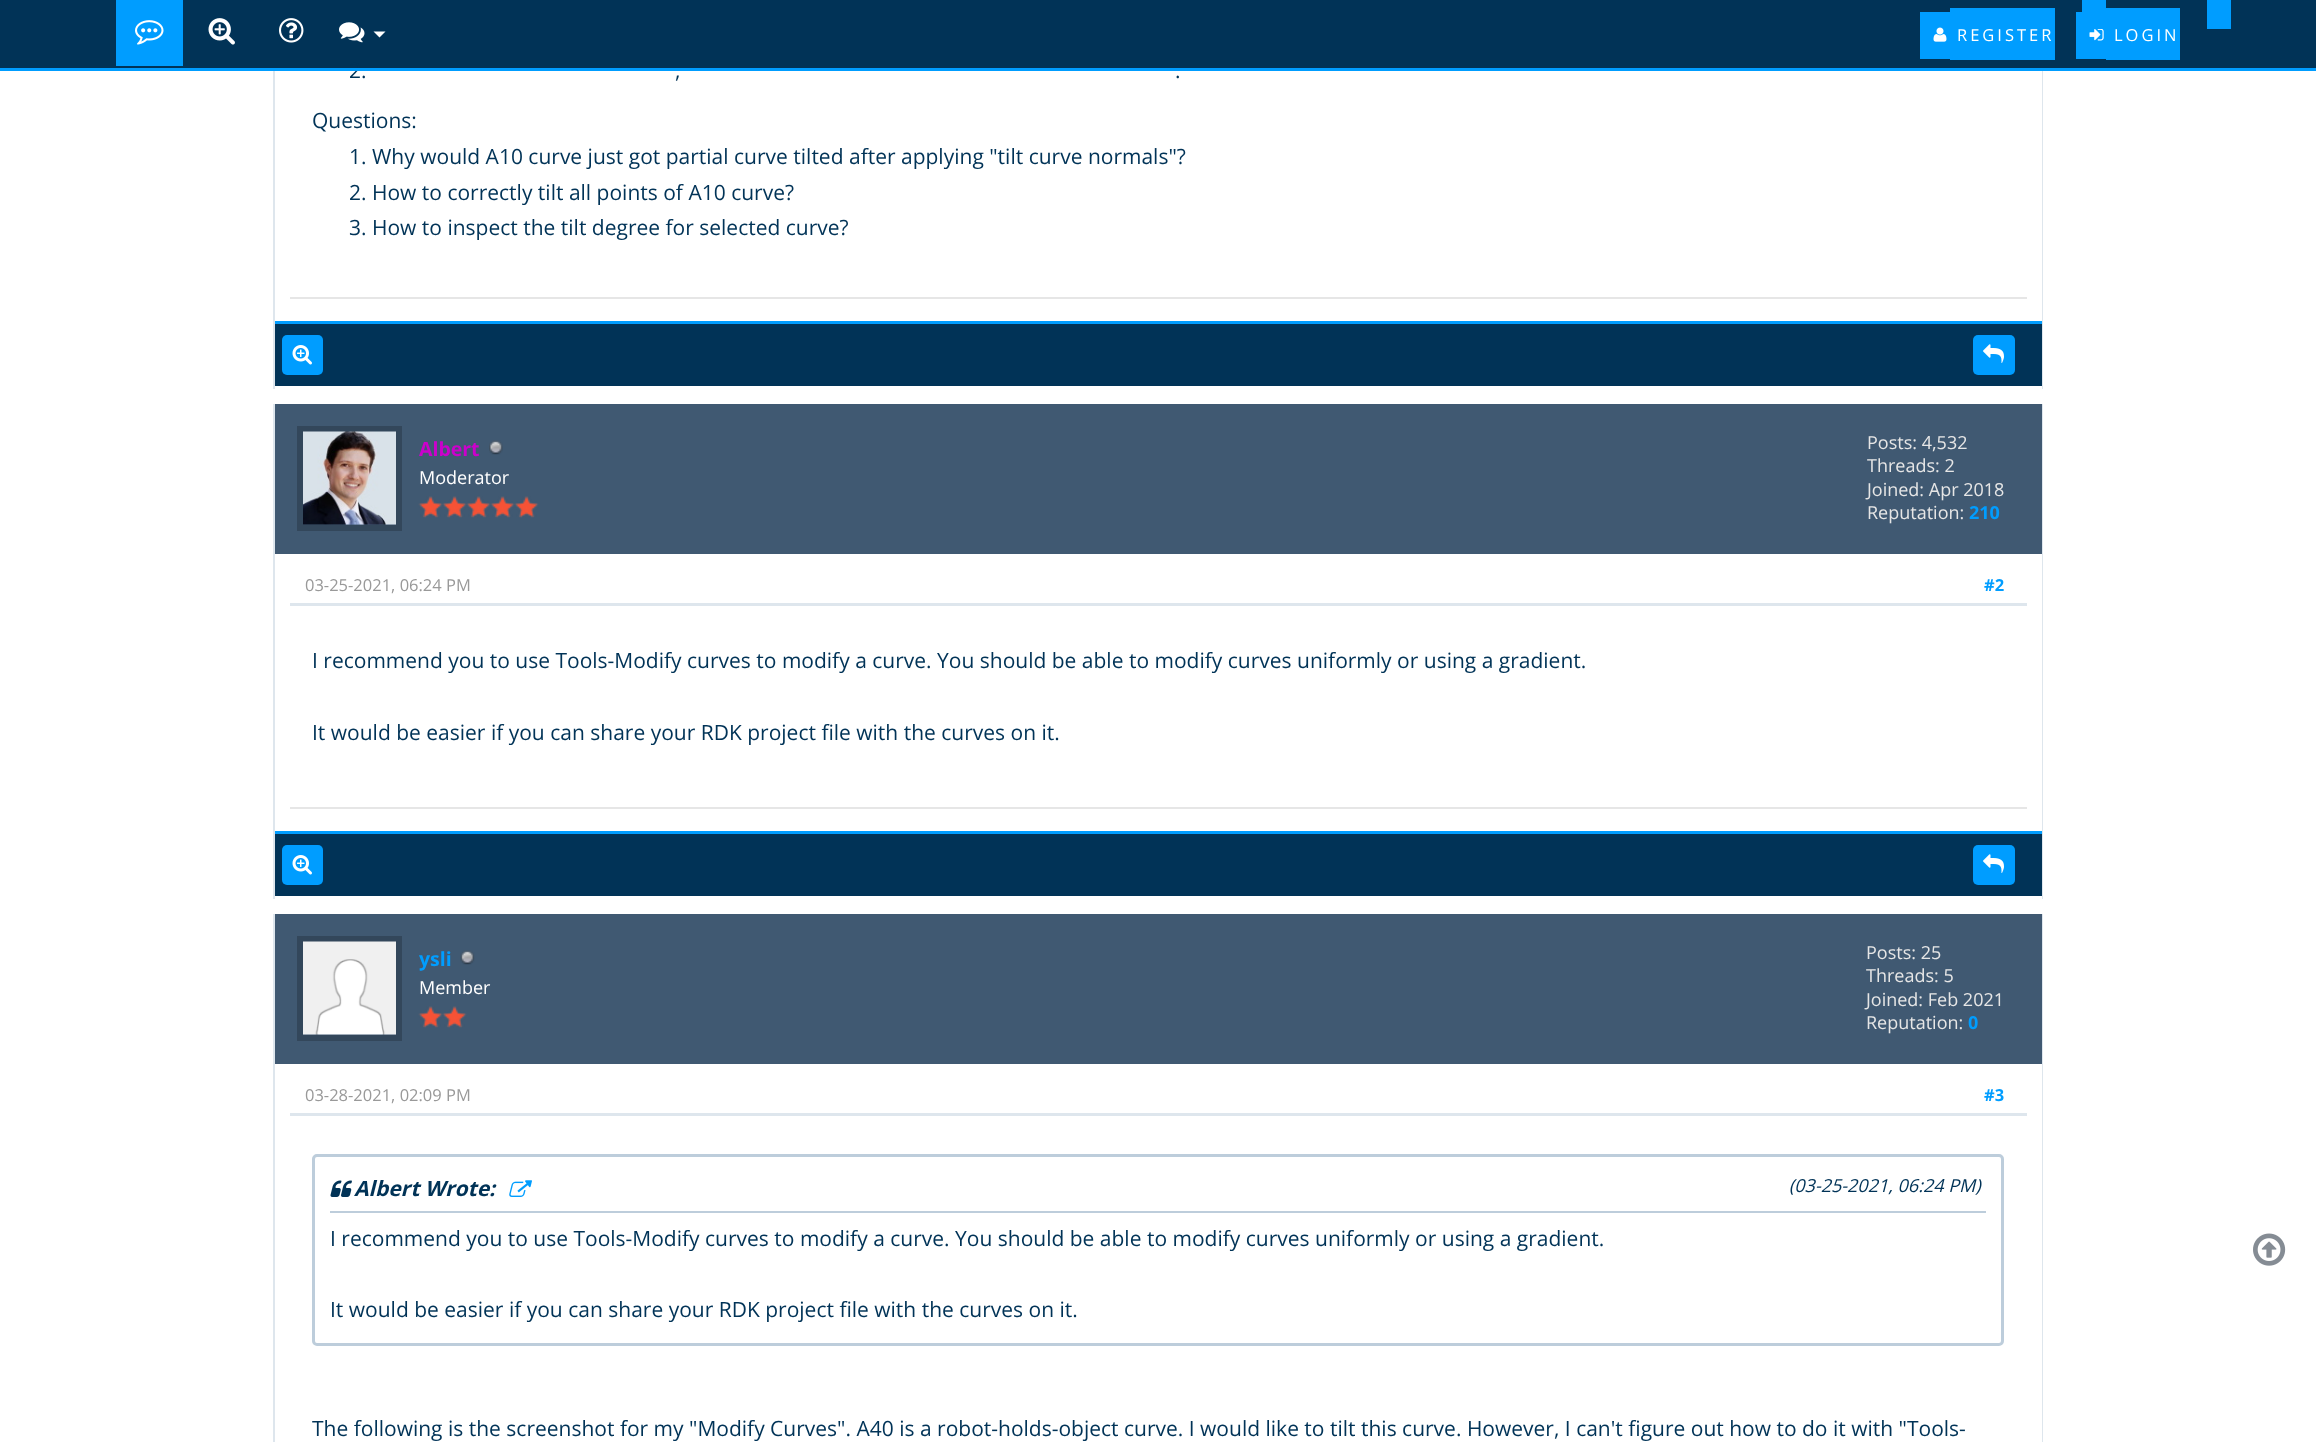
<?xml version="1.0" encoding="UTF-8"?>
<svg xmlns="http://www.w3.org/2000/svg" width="2316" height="1442">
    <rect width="100%" height="100%" fill="#FFFFFF"/>
    <rect x="0" y="0" width="2316" height="68" fill="#013357"/>
    <text x="349" y="78" font-family="Open Sans" font-size="21" fill="#013357">2.</text>
    <rect x="0" y="68" width="2316" height="3" fill="#009DFF"/>
    <rect x="116" y="0" width="67" height="66" fill="#009DFF"/>
    <image x="135" y="20" width="29" height="25" href="img_01.png"/>
    <image x="208" y="18" width="27" height="27" href="img_02.png"/>
    <image x="279" y="18" width="25" height="25" href="img_03.png"/>
    <image x="339" y="22" width="26" height="21" href="img_04.png"/>
    <path d="M 373.5 31.5 H 385.5 L 379.5 37.5 Z" fill="#FFFFFF"/>
    <rect x="1920" y="12" width="30" height="47" fill="#009DFF"/>
    <rect x="1950" y="8" width="105" height="52" fill="#009DFF"/>
    <rect x="2082" y="0" width="24" height="12" fill="#009DFF"/>
    <image x="1933" y="27" width="14" height="15" href="img_05.png"/>
    <text x="1957" y="41" font-family="Open Sans" font-size="16.5" letter-spacing="3" fill="#FFFFFF">REGISTER</text>
    <rect x="2076" y="12" width="30" height="47" fill="#009DFF"/>
    <rect x="2106" y="8" width="74" height="52" fill="#009DFF"/>
    <rect x="2207" y="0" width="24" height="29" fill="#009DFF"/>
    <image x="2089" y="29" width="15" height="12" href="img_06.png"/>
    <text x="2114" y="41" font-family="Open Sans" font-size="16.5" letter-spacing="3" fill="#FFFFFF">LOGIN</text>
    <image x="2253" y="1233" width="33" height="33" href="img_07.png"/>
    <rect x="2042" y="71" width="1" height="318" fill="#DEE6ED"/>
    <rect x="273" y="71" width="2" height="318" fill="#DEE6ED"/>
    <text x="675" y="78" font-family="Open Sans" font-size="21" fill="#013357">,</text>
    <text x="1175" y="78" font-family="Open Sans" font-size="21" fill="#013357">.</text>
    <text x="312" y="128" font-family="Open Sans" font-size="21" fill="#013357">Questions:</text>
    <text font-family="Open Sans" font-size="21" fill="#013357">
        <tspan x="349" y="164">1. Why would A10 curve just got partial curve tilted after applying "tilt curve normals"?</tspan>
        <tspan x="349" y="200">2. How to correctly tilt all points of A10 curve?</tspan>
        <tspan x="349" y="235">3. How to inspect the tilt degree for selected curve?</tspan>
    </text>
    <rect x="290" y="297" width="1737" height="2" fill="#E6E6E6"/>
    <rect x="275" y="324" width="1767" height="62" fill="#013357"/>
    <rect x="275" y="321" width="1767" height="3" fill="#009DFF"/>
    <rect x="282" y="335" width="41" height="40" rx="5" fill="#009DFF"/>
    <image x="292" y="345" width="20" height="20" href="img_08.png"/>
    <rect x="1973" y="335" width="42" height="40" rx="5" fill="#009DFF"/>
    <image x="1983" y="344" width="21" height="19" href="img_09.png"/>
    <rect x="2042" y="404" width="1" height="495" fill="#DEE6ED"/>
    <rect x="273" y="404" width="2" height="495" fill="#DEE6ED"/>
    <rect x="275" y="404" width="1767" height="150" fill="#405972"/>
    <rect x="300" y="429" width="99" height="99" fill="none" stroke="#33475B" stroke-width="6"/>
    <image x="303" y="431" width="93" height="94" href="img_10.png"/>
    <text x="419" y="456" font-family="Open Sans" font-size="19.5" font-weight="700" fill="#CC00CC">Albert</text>
    <image x="489" y="440" width="14" height="15" href="img_11.png"/>
    <text x="419" y="484" font-family="Open Sans" font-size="18" fill="#FFFFFF">Moderator</text>
    <image x="418" y="496" width="25" height="22" href="img_12.png"/>
    <image x="442" y="496" width="25" height="22" href="img_13.png"/>
    <image x="466" y="496" width="25" height="22" href="img_14.png"/>
    <image x="490" y="496" width="25" height="22" href="img_14.png"/>
    <image x="514" y="496" width="25" height="22" href="img_15.png"/>
    <text font-family="Open Sans" font-size="18" fill="#E6E6E6">
        <tspan x="1867" y="449">Posts: 4,532</tspan>
        <tspan x="1867" y="472">Threads: 2</tspan>
        <tspan x="1867" y="496">Joined: Apr 2018</tspan>
        <tspan x="1867" y="519">Reputation:</tspan>
    </text>
    <text x="1969" y="519" font-family="Open Sans" font-size="18" font-weight="700" fill="#009DFF">210</text>
    <rect x="290" y="603" width="1737" height="3" fill="#DEE6ED"/>
    <text x="305" y="591" font-family="Open Sans" font-size="16.5" fill="#999999">03-25-2021, 06:24 PM</text>
    <text x="1984" y="591" font-family="Open Sans" font-size="16.5" font-weight="700" fill="#009DFF">#2</text>
    <text x="312" y="668" font-family="Open Sans" font-size="21" fill="#013357">I recommend you to use Tools-Modify curves to modify a curve. You should be able to modify curves uniformly or using a gradient.</text>
    <text x="312" y="740" font-family="Open Sans" font-size="21" fill="#013357">It would be easier if you can share your RDK project file with the curves on it.</text>
    <rect x="290" y="807" width="1737" height="2" fill="#E6E6E6"/>
    <rect x="275" y="834" width="1767" height="62" fill="#013357"/>
    <rect x="275" y="831" width="1767" height="3" fill="#009DFF"/>
    <rect x="282" y="845" width="41" height="40" rx="5" fill="#009DFF"/>
    <image x="292" y="855" width="20" height="20" href="img_08.png"/>
    <rect x="1973" y="845" width="42" height="40" rx="5" fill="#009DFF"/>
    <image x="1983" y="854" width="21" height="19" href="img_09.png"/>
    <rect x="2042" y="914" width="1" height="528" fill="#DEE6ED"/>
    <rect x="273" y="914" width="2" height="528" fill="#DEE6ED"/>
    <rect x="275" y="914" width="1767" height="150" fill="#405972"/>
    <rect x="300" y="939" width="99" height="99" fill="none" stroke="#33475B" stroke-width="6"/>
    <image x="303" y="941" width="93" height="94" href="img_16.png"/>
    <text x="419" y="966" font-family="Open Sans" font-size="19.5" font-weight="700" fill="#009DFF">ysli</text>
    <image x="460" y="950" width="15" height="15" href="img_17.png"/>
    <text x="419" y="994" font-family="Open Sans" font-size="18" fill="#FFFFFF">Member</text>
    <image x="418" y="1006" width="25" height="22" href="img_12.png"/>
    <image x="442" y="1006" width="25" height="22" href="img_13.png"/>
    <text font-family="Open Sans" font-size="18" fill="#E6E6E6">
        <tspan x="1866" y="959">Posts: 25</tspan>
        <tspan x="1866" y="982">Threads: 5</tspan>
        <tspan x="1866" y="1006">Joined: Feb 2021</tspan>
        <tspan x="1866" y="1029">Reputation:</tspan>
    </text>
    <text x="1968" y="1029" font-family="Open Sans" font-size="18" font-weight="700" fill="#009DFF">0</text>
    <rect x="290" y="1113" width="1737" height="3" fill="#DEE6ED"/>
    <text x="305" y="1101" font-family="Open Sans" font-size="16.5" fill="#999999">03-28-2021, 02:09 PM</text>
    <text x="1984" y="1101" font-family="Open Sans" font-size="16.5" font-weight="700" fill="#009DFF">#3</text>
    <rect x="313.5" y="1155.5" width="1689" height="189" rx="3.5" fill="none" stroke="#BDCDDB" stroke-width="3"/>
    <rect x="330" y="1211" width="1656" height="2" fill="#BDCDDB"/>
    <image x="330" y="1180" width="22" height="17" href="img_18.png"/>
    <text x="354" y="1196" font-family="Open Sans" font-size="21" font-weight="700" font-style="italic" fill="#013357">Albert Wrote:</text>
    <image x="509" y="1180" width="23" height="17" href="img_19.png"/>
    <text x="1789" y="1192" font-family="Open Sans" font-size="18" font-style="italic" fill="#013357">(03-25-2021, 06:24 PM)</text>
    <text x="330" y="1246" font-family="Open Sans" font-size="21" fill="#013357">I recommend you to use Tools-Modify curves to modify a curve. You should be able to modify curves uniformly or using a gradient.</text>
    <text x="330" y="1317" font-family="Open Sans" font-size="21" fill="#013357">It would be easier if you can share your RDK project file with the curves on it.</text>
    <text x="312" y="1436" font-family="Open Sans" font-size="21" fill="#013357">The following is the screenshot for my "Modify Curves". A40 is a robot-holds-object curve. I would like to tilt this curve. However, I can't figure out how to do it with "Tools-</text>
</svg>
